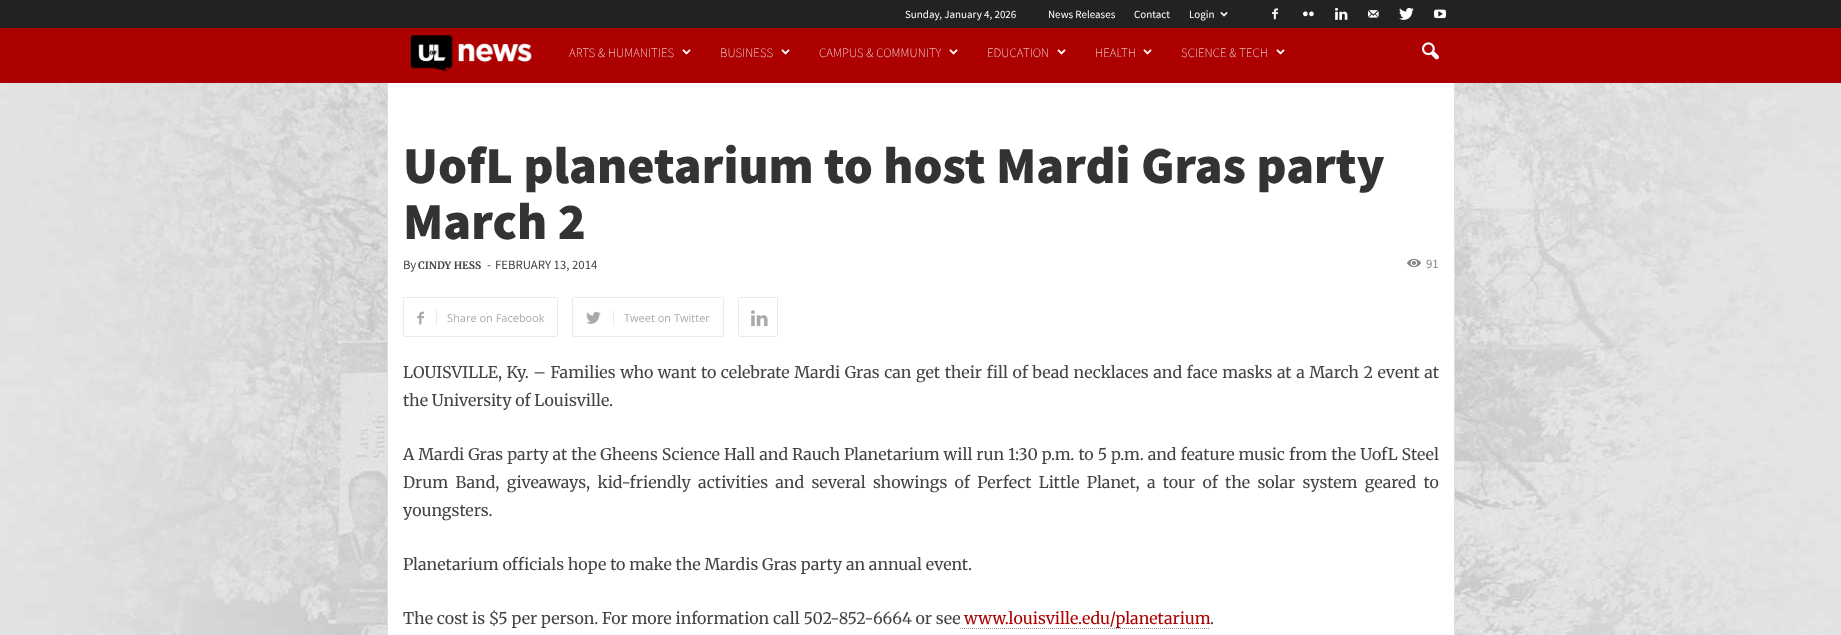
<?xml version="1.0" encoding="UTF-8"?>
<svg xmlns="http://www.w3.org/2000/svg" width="1841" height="635">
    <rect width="100%" height="100%" fill="#FFFFFF"/>
    <rect x="0" y="0" width="1841" height="28" fill="#222222"/>
    <text x="905" y="18" font-family="Source Sans Pro" font-size="11" fill="#FFFFFF">Sunday, January 4, 2026</text>
    <text x="1048" y="18" font-family="Source Sans Pro" font-size="11" fill="#FFFFFF">News Releases</text>
    <text x="1134" y="18" font-family="Source Sans Pro" font-size="11" fill="#FFFFFF">Contact</text>
    <text x="1189" y="18" font-family="Source Sans Pro" font-size="11" fill="#FFFFFF">Login</text>
    <image x="1220" y="12" width="8" height="5" href="img_01.png"/>
    <image x="1272" y="8" width="6" height="12" href="img_02.png"/>
    <image x="1303" y="11" width="11" height="6" href="img_03.png"/>
    <image x="1335" y="7" width="13" height="13" href="img_04.png"/>
    <image x="1368" y="10" width="11" height="8" href="img_05.png"/>
    <image x="1399" y="7" width="15" height="13" href="img_06.png"/>
    <image x="1434" y="9" width="12" height="10" href="img_07.png"/>
    <rect x="0" y="28" width="1841" height="55" fill="#AD0000"/>
    <image x="410" y="34" width="122" height="38" href="img_08.png"/>
    <text x="569" y="57" font-family="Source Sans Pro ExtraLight" font-size="12.75" font-weight="200" letter-spacing="0.1" fill="#FFFFFF">ARTS &amp; HUMANITIES</text>
    <image x="682" y="49" width="9" height="6" href="img_09.png"/>
    <text x="720" y="57" font-family="Source Sans Pro ExtraLight" font-size="12.75" font-weight="200" letter-spacing="0.1" fill="#FFFFFF">BUSINESS</text>
    <image x="781" y="49" width="9" height="6" href="img_09.png"/>
    <text x="819" y="57" font-family="Source Sans Pro ExtraLight" font-size="12.75" font-weight="200" letter-spacing="0.1" fill="#FFFFFF">CAMPUS &amp; COMMUNITY</text>
    <image x="949" y="49" width="9" height="6" href="img_09.png"/>
    <text x="987" y="57" font-family="Source Sans Pro ExtraLight" font-size="12.75" font-weight="200" letter-spacing="0.1" fill="#FFFFFF">EDUCATION</text>
    <image x="1057" y="49" width="9" height="6" href="img_09.png"/>
    <text x="1095" y="57" font-family="Source Sans Pro ExtraLight" font-size="12.75" font-weight="200" letter-spacing="0.1" fill="#FFFFFF">HEALTH</text>
    <image x="1143" y="49" width="9" height="6" href="img_09.png"/>
    <text x="1181" y="57" font-family="Source Sans Pro ExtraLight" font-size="12.75" font-weight="200" letter-spacing="0.1" fill="#FFFFFF">SCIENCE &amp; TECH</text>
    <image x="1276" y="49" width="9" height="6" href="img_09.png"/>
    <image x="1422" y="42" width="17" height="18" href="img_10.png"/>
    <image x="0" y="83" width="1841" height="552" href="img_11.png"/>
    <rect x="388" y="83" width="1066" height="552" fill="#FFFFFF"/>
    <rect x="1454" y="83" width="1" height="552" fill="#DEDEDE"/>
    <rect x="387" y="83" width="1" height="552" fill="#DEDEDE"/>
    <text font-family="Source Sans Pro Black" font-size="52" font-weight="900" fill="#333333">
        <tspan x="403" y="183">UofL planetarium to host Mardi Gras party</tspan>
        <tspan x="403" y="239">March 2</tspan>
    </text>
    <text x="403" y="269" font-family="Source Sans Pro" font-size="12.75" fill="#444444">By</text>
    <text x="418" y="269" font-family="Merriweather" font-size="10.25" font-weight="700" fill="#444444">CINDY HESS</text>
    <text x="487" y="269" font-family="Source Sans Pro" font-size="12.75" fill="#444444">-</text>
    <text x="495" y="269" font-family="Source Sans Pro" font-size="12.75" fill="#444444">FEBRUARY 13, 2014</text>
    <image x="1407" y="258" width="14" height="10" href="img_12.png"/>
    <text x="1426" y="268" font-family="Source Sans Pro" font-size="12.75" fill="#888888">91</text>
    <rect x="403.5" y="297.5" width="154" height="39" rx="1.5" fill="none" stroke="#EAEAEA"/>
    <image x="417" y="311" width="7" height="14" href="img_13.png"/>
    <rect x="436" y="310" width="1" height="16" fill="#EAEAEA"/>
    <text x="447" y="322" font-family="Open Sans" font-size="11" fill="#AAAAAA">Share on Facebook</text>
    <rect x="572.5" y="297.5" width="151" height="39" rx="1.5" fill="none" stroke="#EAEAEA"/>
    <image x="586" y="311" width="15" height="13" href="img_14.png"/>
    <rect x="613" y="310" width="1" height="16" fill="#EAEAEA"/>
    <text x="624" y="322" font-family="Open Sans" font-size="11" fill="#AAAAAA">Tweet on Twitter</text>
    <rect x="738.5" y="297.5" width="39" height="39" rx="1.5" fill="none" stroke="#EAEAEA"/>
    <image x="751" y="310" width="17" height="17" href="img_15.png"/>
    <text font-family="Merriweather" font-size="16" fill="#444444">
        <tspan x="403" y="378" word-spacing="0.75">LOUISVILLE, Ky. – Families who want to celebrate Mardi Gras can get their fill of bead necklaces and face masks at a March 2 event at</tspan>
        <tspan x="403" y="406">the University of Louisville.</tspan>
    </text>
    <text font-family="Merriweather" font-size="16" fill="#444444">
        <tspan x="403" y="460" word-spacing="0.2">A Mardi Gras party at the Gheens Science Hall and Rauch Planetarium will run 1:30 p.m. to 5 p.m. and feature music from the UofL Steel</tspan>
        <tspan x="403" y="488" word-spacing="3.5">Drum Band, giveaways, kid-friendly activities and several showings of Perfect Little Planet, a tour of the solar system geared to</tspan>
        <tspan x="403" y="516">youngsters.</tspan>
    </text>
    <text x="403" y="570" font-family="Merriweather" font-size="16" fill="#444444">Planetarium officials hope to make the Mardis Gras party an annual event.</text>
    <text x="403" y="624" font-family="Merriweather" font-size="16" fill="#444444">The cost is $5 per person. For more information call 502-852-6664 or see</text>
    <text x="964" y="624" font-family="Merriweather" font-size="16" fill="#AD0000">www.louisville.edu/planetarium</text>
    <path d="M 960 628.5 H 1210" fill="none" stroke="#999999" stroke-dasharray="1 1"/>
    <text x="1210" y="624" font-family="Merriweather" font-size="16" fill="#444444">.</text>
</svg>
